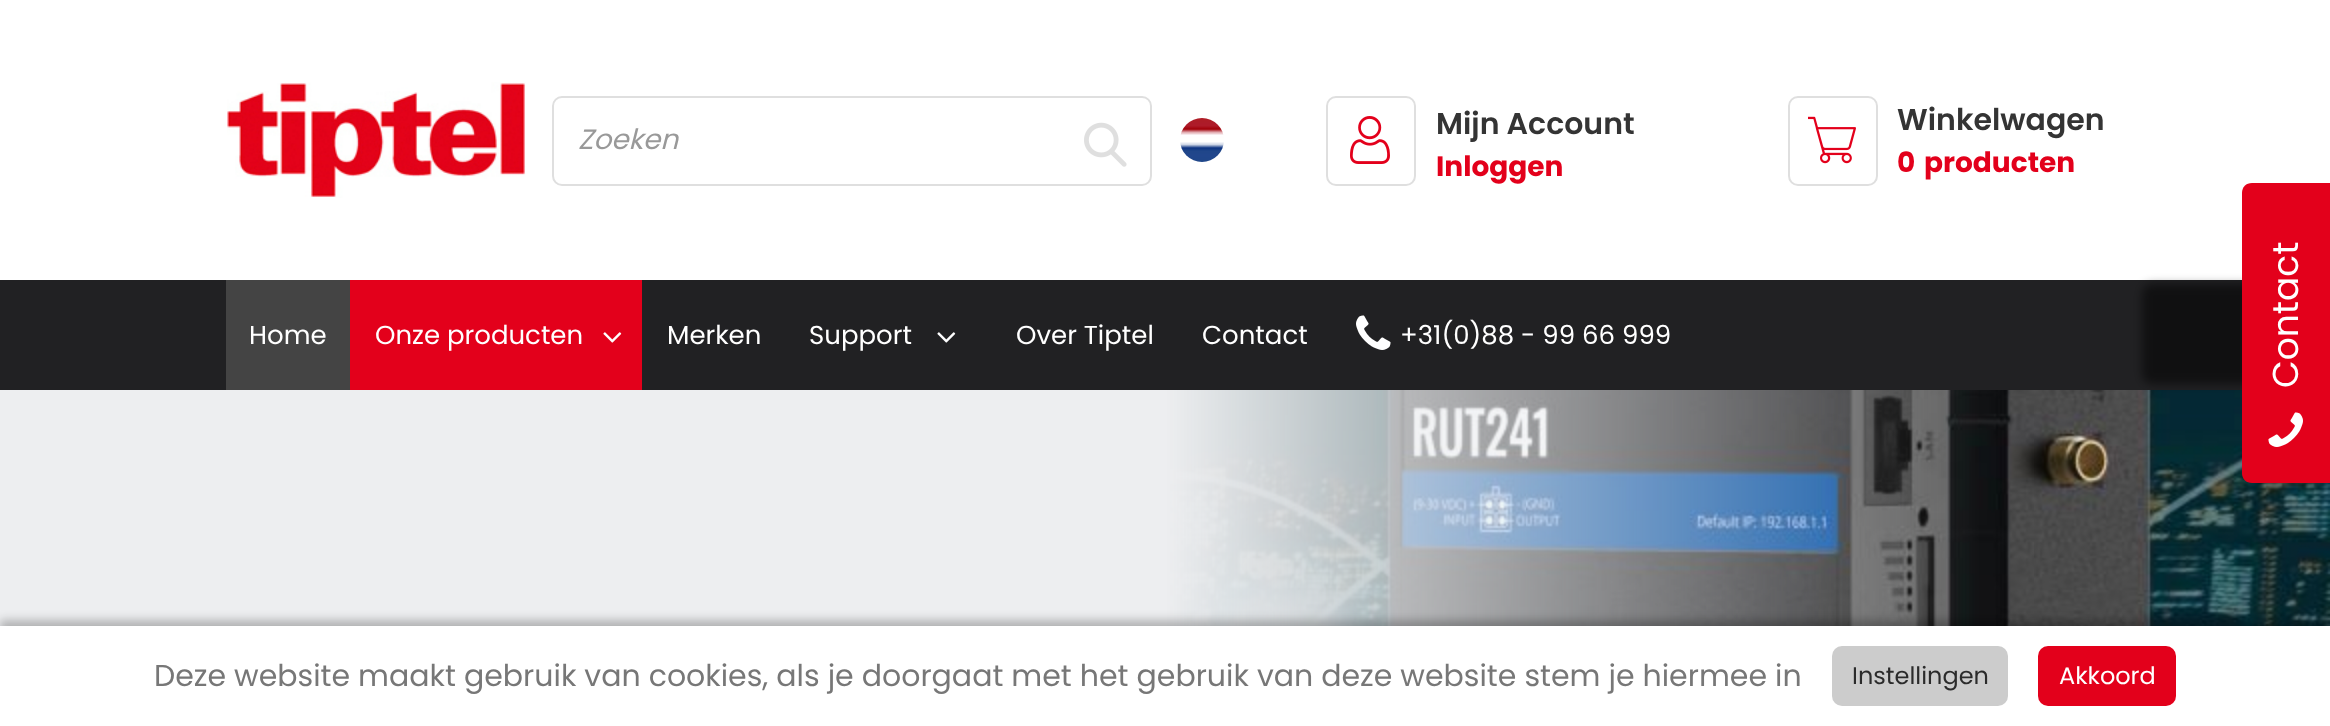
<?xml version="1.0" encoding="UTF-8"?>
<svg xmlns="http://www.w3.org/2000/svg" width="2330" height="726">
    <defs>
        <filter id="blur1" x="-50%" y="-200%" width="200%" height="500%"><feGaussianBlur stdDeviation="5"/></filter>
    </defs>
    <rect width="100%" height="100%" fill="#FFFFFF"/>
    <image x="227" y="82" width="299" height="116" href="img_01.png"/>
    <rect x="553" y="97" width="598" height="88" rx="9" fill="none" stroke="#DFDFDF" stroke-width="2"/>
    <text x="578" y="149" font-family="Poppins" font-size="28" font-style="italic" fill="#999999">Zoeken</text>
    <image x="1084" y="122" width="43" height="45" href="img_02.png"/>
    <image x="1180" y="118" width="44" height="44" href="img_03.png"/>
    <rect x="1327" y="97" width="88" height="88" rx="9" fill="none" stroke="#DFDFDF" stroke-width="2"/>
    <image x="1350" y="116" width="40" height="48" href="img_04.png"/>
    <text x="1436" y="134" font-family="Poppins" font-size="30" font-weight="600" fill="#343434">Mijn Account</text>
    <text x="1436" y="176" font-family="Poppins" font-size="28" font-weight="700" fill="#E3001B">Inloggen</text>
    <rect x="1789" y="97" width="88" height="88" rx="9" fill="none" stroke="#DFDFDF" stroke-width="2"/>
    <image x="1808" y="116" width="48" height="48" href="img_05.png"/>
    <text x="1897" y="130" font-family="Poppins" font-size="30" font-weight="600" fill="#343434">Winkelwagen</text>
    <text x="1897" y="172" font-family="Poppins" font-size="28" font-weight="700" fill="#E3001B">0</text>
    <text x="1924" y="172" font-family="Poppins" font-size="28" font-weight="700" fill="#E3001B">producten</text>
    <rect x="0" y="280" width="2242" height="110" fill="#212123"/>
    <rect x="226" y="280" width="124" height="110" fill="#444444"/>
    <text x="249" y="344" font-family="Poppins" font-size="26" fill="#FFFFFF">Home</text>
    <rect x="350" y="280" width="292" height="110" fill="#E3001B"/>
    <text x="375" y="344" font-family="Poppins" font-size="26" fill="#FFFFFF">Onze producten</text>
    <image x="603" y="332" width="19" height="11" href="img_06.png"/>
    <text x="667" y="344" font-family="Poppins" font-size="26" fill="#FFFFFF">Merken</text>
    <text x="809" y="344" font-family="Poppins" font-size="26" fill="#FFFFFF">Support</text>
    <image x="937" y="332" width="19" height="11" href="img_07.png"/>
    <text x="1016" y="344" font-family="Poppins" font-size="26" fill="#FFFFFF">Over Tiptel</text>
    <text x="1202" y="344" font-family="Poppins" font-size="26" fill="#FFFFFF">Contact</text>
    <image x="1356" y="315" width="35" height="35" href="img_08.png"/>
    <text x="1400" y="344" font-family="Poppins" font-size="26" fill="#FFFFFF">+31(0)88 - 99 66 999</text>
    <image x="0" y="390" width="2330" height="236" href="img_10.png"/>
    <rect x="2142" y="284" width="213" height="100" rx="10" fill="#000000" fill-opacity="0.5" filter="url(#blur1)"/>
    <path d="M 2242 473 V 193 C 2242 187 2246 183 2252 183 H 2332 C 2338 183 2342 187 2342 193 V 473 C 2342 479 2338 483 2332 483 H 2252 C 2246 483 2242 479 2242 473 Z" fill="#E3001B"/>
    <text x="2298" y="388" transform="rotate(-90 2298 388)" font-family="Poppins" font-size="36" fill="#FFFFFF">Contact</text>
    <image x="2268" y="412" width="35" height="35" href="img_09.png"/>
    <rect x="0" y="620" width="2330" height="100" fill="#000000" fill-opacity="0.25" filter="url(#blur1)"/>
    <rect x="0" y="626" width="2330" height="100" fill="#FFFFFF"/>
    <text x="154" y="686" font-family="Poppins" font-size="30" fill="#777777">Deze website maakt gebruik van cookies, als je doorgaat met het gebruik van deze website stem je hiermee in</text>
    <rect x="1832" y="646" width="176" height="60" rx="10" fill="#CCCCCC"/>
    <text x="1852" y="684" font-family="Poppins" font-size="24" fill="#2B2B2B">Instellingen</text>
    <rect x="2038" y="646" width="138" height="60" rx="10" fill="#E3001B"/>
    <text x="2059" y="684" font-family="Poppins" font-size="24" fill="#FFFFFF">Akkoord</text>
</svg>
